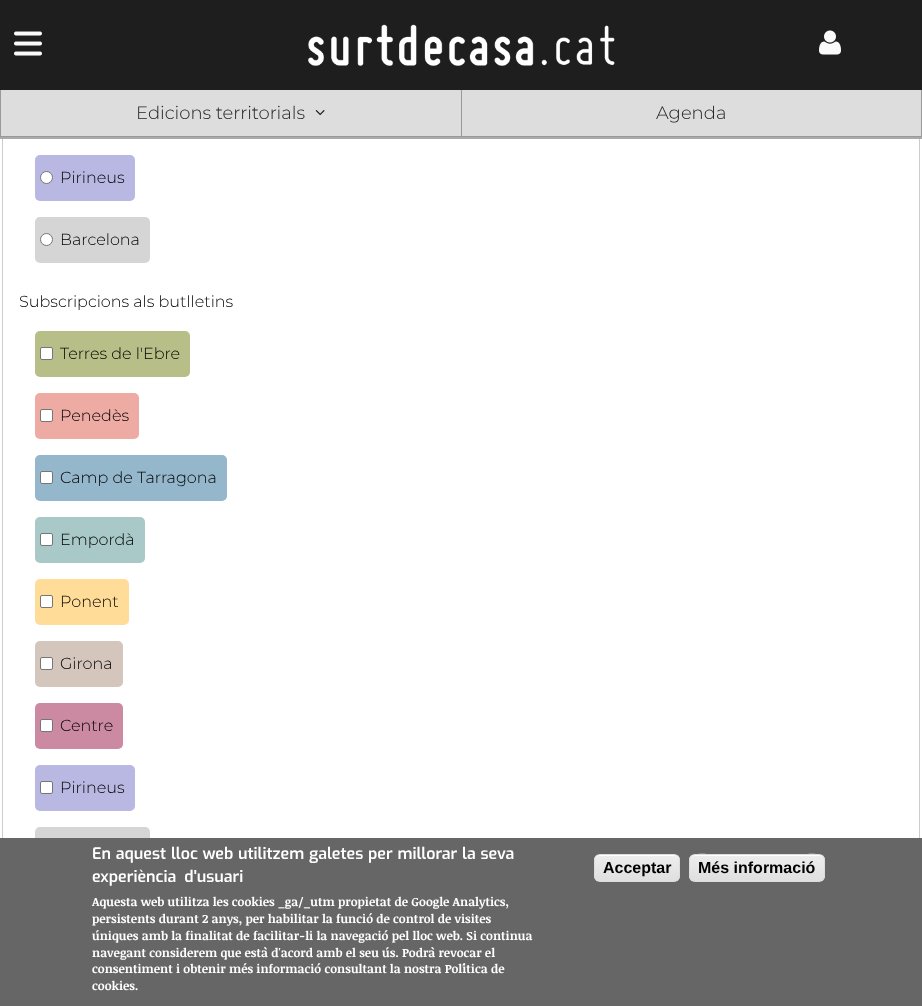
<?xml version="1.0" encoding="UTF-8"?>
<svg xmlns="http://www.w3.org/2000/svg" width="922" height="1006">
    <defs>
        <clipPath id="clip1"><rect x="594" y="854" width="86" height="28" rx="6"/></clipPath>
        <linearGradient id="g1" gradientUnits="userSpaceOnUse" x1="637" y1="855" x2="637" y2="881"><stop offset="0.05" stop-color="#EDEDED"/><stop offset="1" stop-color="#DFDFDF"/></linearGradient>
        <clipPath id="clip2"><rect x="689" y="854" width="136" height="28" rx="6"/></clipPath>
        <linearGradient id="g2" gradientUnits="userSpaceOnUse" x1="757" y1="855" x2="757" y2="881"><stop offset="0.05" stop-color="#EDEDED"/><stop offset="1" stop-color="#DFDFDF"/></linearGradient>
    </defs>
    <rect width="100%" height="100%" fill="#FFFFFF"/>
    <rect x="2.5" y="-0.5" width="917" height="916" fill="none" stroke="#CCCCCC"/>
    <rect x="0" y="0" width="922" height="90" fill="#1E1E1E"/>
    <image x="14" y="31" width="28" height="25" href="img_01.png"/>
    <image x="308" y="24" width="307" height="42" href="img_02.png"/>
    <image x="819" y="30" width="22" height="25" href="img_03.png"/>
    <rect x="0" y="137" width="922" height="2" fill="#AAAAAA"/>
    <rect x="1" y="90" width="460" height="46" fill="#DDDDDD"/>
    <rect x="0" y="136" width="461" height="1" fill="#999999"/>
    <rect x="0" y="90" width="1" height="47" fill="#999999"/>
    <text x="136" y="119" font-family="Montserrat" font-size="18" font-weight="300" fill="#1E1E1E">Edicions territorials</text>
    <image x="315" y="110" width="10" height="6" href="img_04.png"/>
    <rect x="462" y="90" width="459" height="46" fill="#DDDDDD"/>
    <rect x="921" y="90" width="1" height="47" fill="#999999"/>
    <rect x="461" y="136" width="461" height="1" fill="#999999"/>
    <rect x="461" y="90" width="1" height="47" fill="#999999"/>
    <text x="656" y="119" font-family="Montserrat" font-size="18" font-weight="300" fill="#1E1E1E">Agenda</text>
    <rect x="35" y="155" width="100" height="46" rx="5" fill="#B8B8E2"/>
    <circle cx="46.5" cy="177.5" r="6" fill="#FFFFFF" stroke="#767676"/>
    <text x="60" y="183" font-family="Montserrat" font-size="16" font-weight="300" fill="#000000">Pirineus</text>
    <rect x="35" y="217" width="115" height="46" rx="5" fill="#D5D5D5"/>
    <circle cx="46.5" cy="239.5" r="6" fill="#FFFFFF" stroke="#767676"/>
    <text x="60" y="245" font-family="Montserrat" font-size="16" font-weight="300" fill="#000000">Barcelona</text>
    <text x="19" y="307" font-family="Montserrat" font-size="16" font-weight="300" fill="#000000">Subscripcions als butlletins</text>
    <rect x="35" y="331" width="155" height="46" rx="5" fill="#B7BE88"/>
    <rect x="40.5" y="347.5" width="12" height="12" rx="1.5" fill="#FFFFFF" stroke="#767676"/>
    <text x="60" y="359" font-family="Montserrat" font-size="16" font-weight="300" fill="#000000">Terres de l'Ebre</text>
    <rect x="35" y="393" width="104" height="46" rx="5" fill="#EDABA4"/>
    <rect x="40.5" y="409.5" width="12" height="12" rx="1.5" fill="#FFFFFF" stroke="#767676"/>
    <text x="60" y="421" font-family="Montserrat" font-size="16" font-weight="300" fill="#000000">Penedès</text>
    <rect x="35" y="455" width="192" height="46" rx="5" fill="#95B7CB"/>
    <rect x="40.5" y="471.5" width="12" height="12" rx="1.5" fill="#FFFFFF" stroke="#767676"/>
    <text x="60" y="483" font-family="Montserrat" font-size="16" font-weight="300" fill="#000000">Camp de Tarragona</text>
    <rect x="35" y="517" width="110" height="46" rx="5" fill="#A8C9C7"/>
    <rect x="40.5" y="533.5" width="12" height="12" rx="1.5" fill="#FFFFFF" stroke="#767676"/>
    <text x="60" y="545" font-family="Montserrat" font-size="16" font-weight="300" fill="#000000">Empordà</text>
    <rect x="35" y="579" width="94" height="46" rx="5" fill="#FFDD99"/>
    <rect x="40.5" y="595.5" width="12" height="12" rx="1.5" fill="#FFFFFF" stroke="#767676"/>
    <text x="60" y="607" font-family="Montserrat" font-size="16" font-weight="300" fill="#000000">Ponent</text>
    <rect x="35" y="641" width="88" height="46" rx="5" fill="#D5C6BD"/>
    <rect x="40.5" y="657.5" width="12" height="12" rx="1.5" fill="#FFFFFF" stroke="#767676"/>
    <text x="60" y="669" font-family="Montserrat" font-size="16" font-weight="300" fill="#000000">Girona</text>
    <rect x="35" y="703" width="88" height="46" rx="5" fill="#CB8AA2"/>
    <rect x="40.5" y="719.5" width="12" height="12" rx="1.5" fill="#FFFFFF" stroke="#767676"/>
    <text x="60" y="731" font-family="Montserrat" font-size="16" font-weight="300" fill="#000000">Centre</text>
    <rect x="35" y="765" width="100" height="46" rx="5" fill="#B8B8E2"/>
    <rect x="40.5" y="781.5" width="12" height="12" rx="1.5" fill="#FFFFFF" stroke="#767676"/>
    <text x="60" y="793" font-family="Montserrat" font-size="16" font-weight="300" fill="#000000">Pirineus</text>
    <rect x="35" y="827" width="115" height="46" rx="5" fill="#D5D5D5"/>
    <rect x="0" y="838" width="922" height="168" fill="#666666"/>
    <text font-family="Exo" font-size="16" font-weight="600" fill="#FFFFFF">
        <tspan x="92" y="859" word-spacing="0.6">En aquest lloc web utilitzem galetes per millorar la seva</tspan>
        <tspan x="92" y="882" word-spacing="4">experiència d'usuari</tspan>
    </text>
    <text font-family="Noticia Text" font-size="12" font-weight="700" fill="#FFFFFF">
        <tspan x="92" y="906">Aquesta web utilitza les cookies _ga/_utm propietat de Google Analytics,</tspan>
        <tspan x="92" y="923">persistents durant 2 anys, per habilitar la funció de control de visites</tspan>
        <tspan x="92" y="940">úniques amb la finalitat de facilitar-li la navegació pel lloc web. Si continua</tspan>
        <tspan x="92" y="957">navegant considerem que està d'acord amb el seu ús. Podrà revocar el</tspan>
        <tspan x="92" y="973">consentiment i obtenir més informació consultant la nostra Política de</tspan>
        <tspan x="92" y="990">cookies.</tspan>
    </text>
    <g clip-path="url(#clip1)">
        <rect x="594" y="855" width="86" height="26" fill="url(#g1)"/>
    </g>
    <path d="M 600 856 H 674 C 677 856 679 858 679 861 C 679 852 667 855 662 855 H 612 C 607 855 595 852 595 861 C 595 858 597 856 600 856 Z" fill="#FFFFFF"/>
    <rect x="594.5" y="854.5" width="85" height="27" rx="5.5" fill="none" stroke="#DCDCDC"/>
    <text x="603" y="873" font-family="Liberation Sans" font-size="16" font-weight="700" fill="#000000">Acceptar</text>
    <g clip-path="url(#clip2)">
        <rect x="689" y="855" width="136" height="26" fill="url(#g2)"/>
    </g>
    <path d="M 695 856 H 819 C 822 856 824 858 824 861 C 824 850 802 855 798 855 H 716 C 712 855 690 850 690 861 C 690 858 692 856 695 856 Z" fill="#FFFFFF"/>
    <rect x="689.5" y="854.5" width="135" height="27" rx="5.5" fill="none" stroke="#DCDCDC"/>
    <text x="698" y="873" font-family="Liberation Sans" font-size="16" font-weight="700" fill="#000000">Més informació</text>
</svg>
